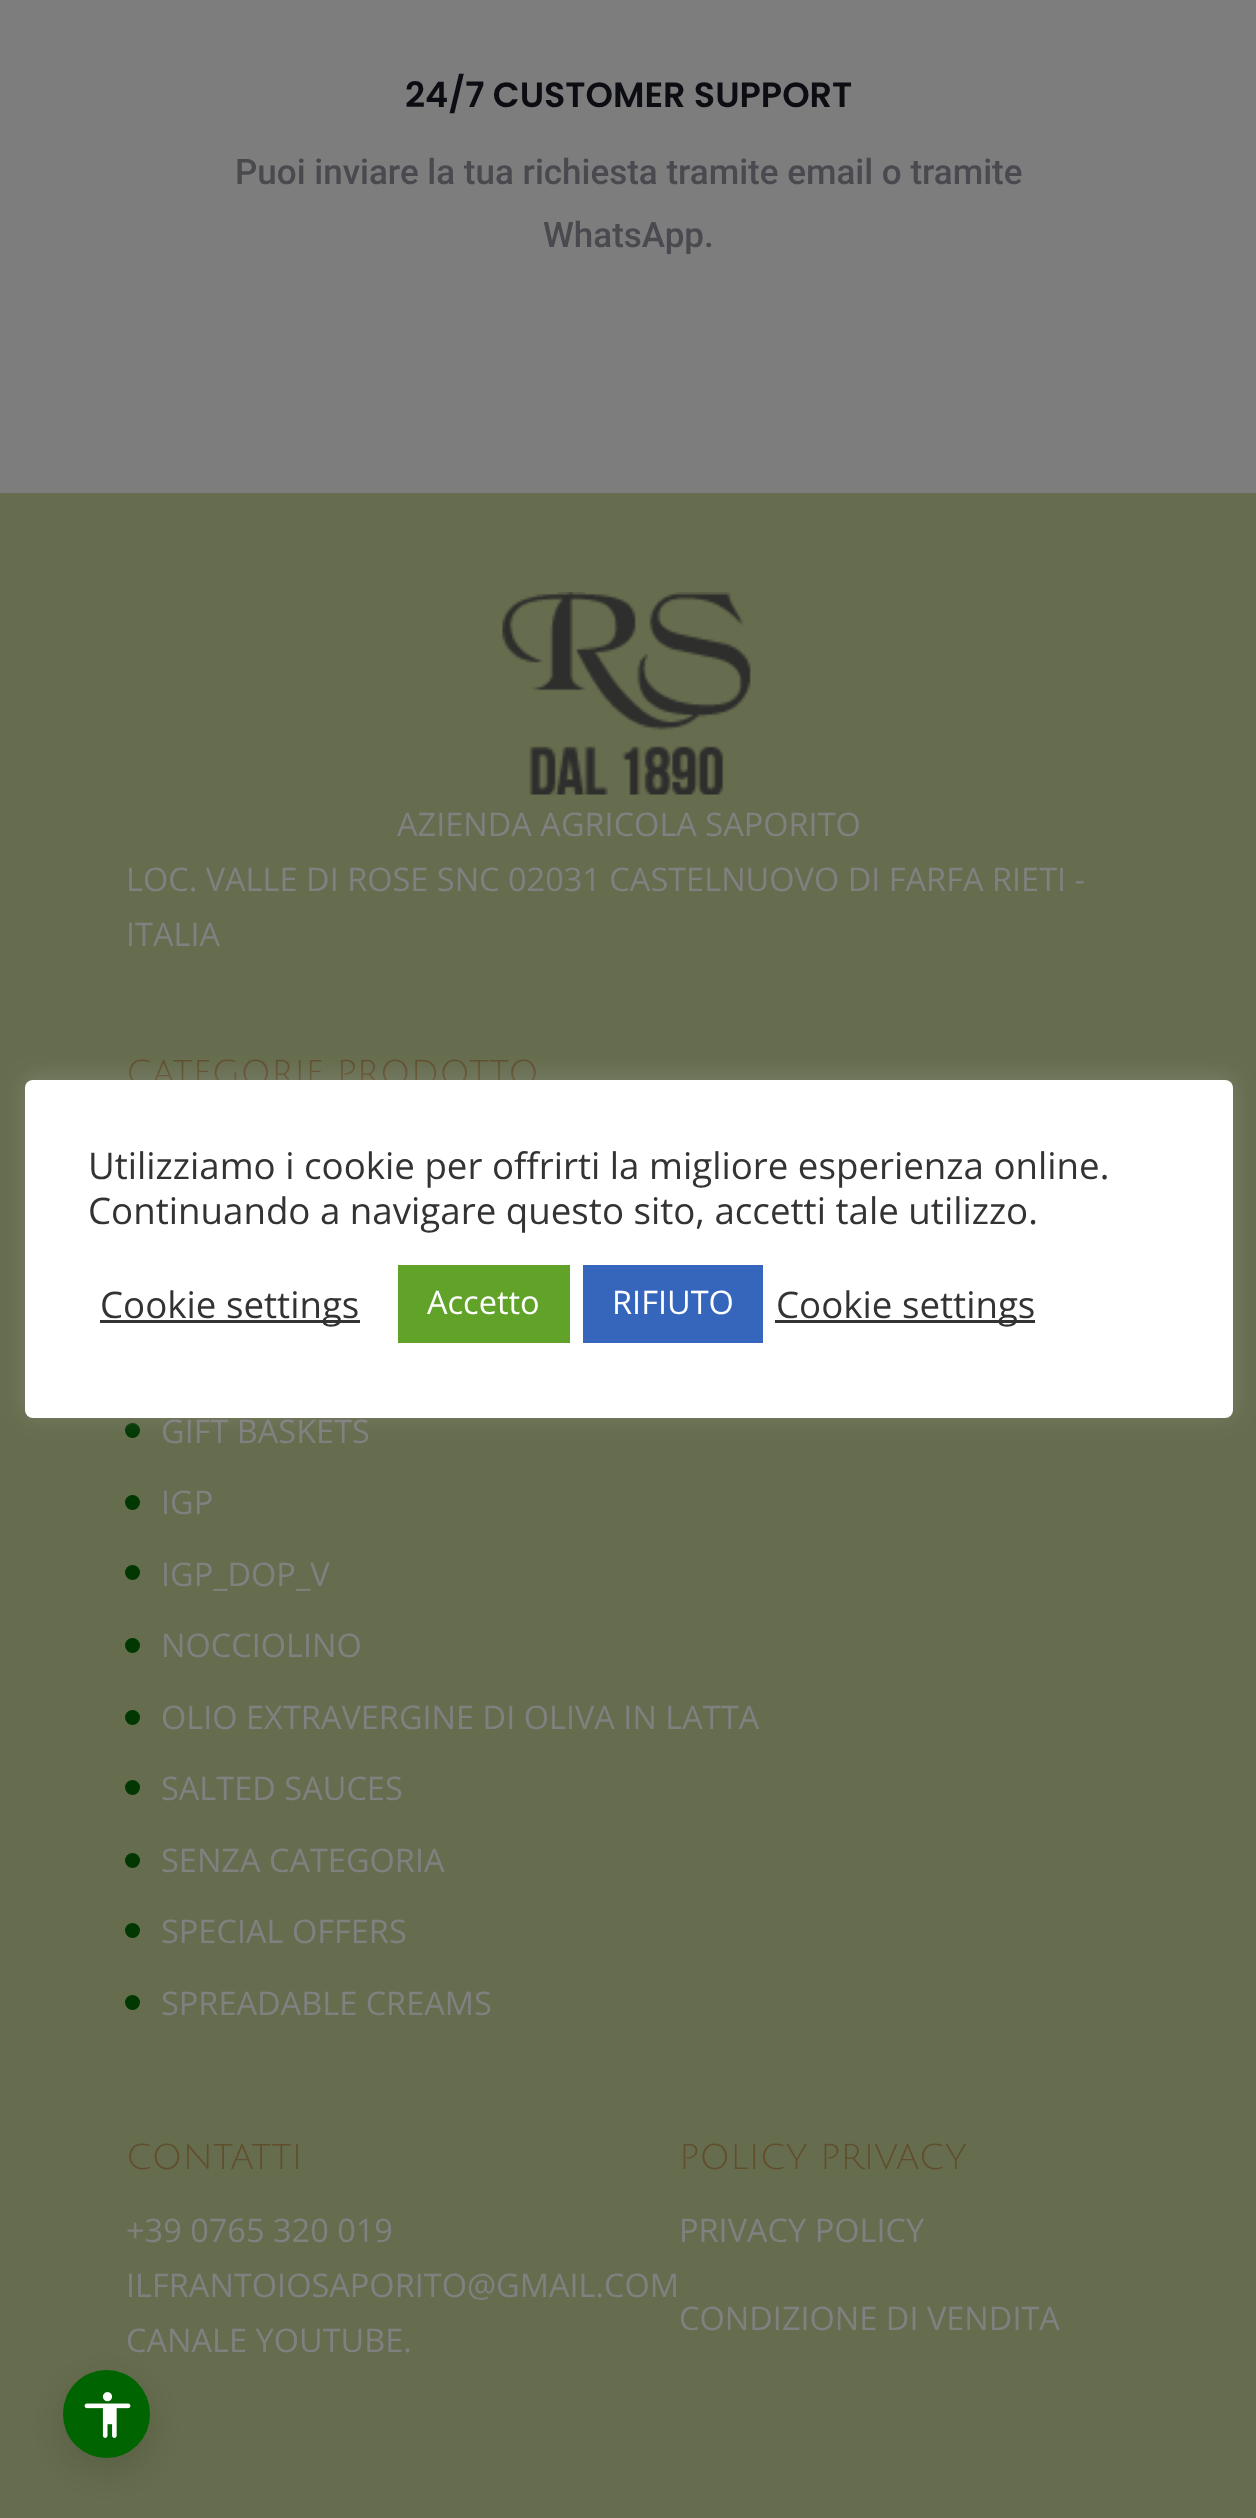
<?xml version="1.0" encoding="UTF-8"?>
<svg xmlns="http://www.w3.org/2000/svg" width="1256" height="2518">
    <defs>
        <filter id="blur1" x="-50%" y="-200%" width="200%" height="500%"><feGaussianBlur stdDeviation="12.5"/></filter>
        <filter id="blur2" x="-50%" y="-200%" width="200%" height="500%"><feGaussianBlur stdDeviation="19"/></filter>
    </defs>
    <rect width="100%" height="100%" fill="#666D4E"/>
    <rect x="0" y="0" width="1256" height="493" fill="#7D7D7E"/>
    <text x="405" y="107" font-family="Poppins" font-size="35" font-weight="600" fill="#0C0C13">24/7 CUSTOMER SUPPORT</text>
    <text x="235" y="184" font-family="Roboto" font-size="35" font-weight="500" fill="#49494F">Puoi inviare la tua richiesta tramite email o tramite</text>
    <text x="543" y="247" font-family="Roboto" font-size="35" font-weight="500" fill="#49494F">WhatsApp.</text>
    <image x="502" y="592" width="249" height="203" href="img_01.png"/>
    <text x="397" y="836" font-family="Open Sans" font-size="32.5" fill="#808080">AZIENDA AGRICOLA SAPORITO</text>
    <text font-family="Open Sans" font-size="32.5" fill="#808080">
        <tspan x="126" y="891">LOC. VALLE DI ROSE SNC 02031 CASTELNUOVO DI FARFA RIETI -</tspan>
        <tspan x="126" y="946">ITALIA</tspan>
    </text>
    <text x="126" y="1085" font-family="Julius Sans One" font-size="35" fill="#604E2D">CATEGORIE PRODOTTO</text>
    <circle cx="132.5" cy="1430.5" r="7.5" fill="#013802"/>
    <text x="161" y="1443" font-family="Open Sans" font-size="32.5" fill="#808080">GIFT BASKETS</text>
    <circle cx="132.5" cy="1502.5" r="7.5" fill="#013802"/>
    <text x="161" y="1514" font-family="Open Sans" font-size="32.5" fill="#808080">IGP</text>
    <circle cx="132.5" cy="1572.5" r="7.5" fill="#013802"/>
    <text x="161" y="1586" font-family="Open Sans" font-size="32.5" fill="#808080">IGP_DOP_V</text>
    <circle cx="132.5" cy="1645.5" r="7.5" fill="#013802"/>
    <text x="161" y="1657" font-family="Open Sans" font-size="32.5" fill="#808080">NOCCIOLINO</text>
    <circle cx="132.5" cy="1717.5" r="7.5" fill="#013802"/>
    <text x="161" y="1729" font-family="Open Sans" font-size="32.5" fill="#808080">OLIO EXTRAVERGINE DI OLIVA IN LATTA</text>
    <circle cx="132.5" cy="1787.5" r="7.5" fill="#013802"/>
    <text x="161" y="1800" font-family="Open Sans" font-size="32.5" fill="#808080">SALTED SAUCES</text>
    <circle cx="132.5" cy="1860.5" r="7.5" fill="#013802"/>
    <text x="161" y="1872" font-family="Open Sans" font-size="32.5" fill="#808080">SENZA CATEGORIA</text>
    <circle cx="132.5" cy="1930.5" r="7.5" fill="#013802"/>
    <text x="161" y="1943" font-family="Open Sans" font-size="32.5" fill="#808080">SPECIAL OFFERS</text>
    <circle cx="132.5" cy="2002.5" r="7.5" fill="#013802"/>
    <text x="161" y="2015" font-family="Open Sans" font-size="32.5" fill="#808080">SPREADABLE CREAMS</text>
    <text x="126" y="2169" font-family="Julius Sans One" font-size="35" fill="#604E2D">CONTATTI</text>
    <text font-family="Open Sans" font-size="32.5" fill="#808080">
        <tspan x="126" y="2242">+39 0765 320 019</tspan>
        <tspan x="126" y="2297">ILFRANTOIOSAPORITO@GMAIL.COM</tspan>
        <tspan x="126" y="2352">CANALE YOUTUBE.</tspan>
    </text>
    <text x="679" y="2169" font-family="Julius Sans One" font-size="35" fill="#604E2D">POLICY PRIVACY</text>
    <text x="679" y="2242" font-family="Open Sans" font-size="32.5" fill="#808080">PRIVACY POLICY</text>
    <text x="679" y="2330" font-family="Open Sans" font-size="32.5" fill="#808080">CONDIZIONE DI VENDITA</text>
    <rect x="25" y="1078" width="1208" height="337" rx="8" fill="#ACABAB" fill-opacity="0.3" filter="url(#blur1)"/>
    <rect x="25" y="1080" width="1208" height="338" rx="8" fill="#FFFFFF"/>
    <text font-family="Open Sans" font-size="36.7" fill="#333333">
        <tspan x="88" y="1179">Utilizziamo i cookie per offrirti la migliore esperienza online.</tspan>
        <tspan x="88" y="1224">Continuando a navigare questo sito, accetti tale utilizzo.</tspan>
    </text>
    <rect x="100" y="1320" width="260" height="3" fill="#333333"/>
    <text x="100" y="1318" font-family="Open Sans" font-size="36.7" fill="#333333">Cookie settings</text>
    <rect x="398" y="1265" width="172" height="78" fill="#61A229"/>
    <text x="427" y="1314" font-family="Open Sans" font-size="32.5" fill="#FFFFFF">Accetto</text>
    <rect x="583" y="1265" width="180" height="78" fill="#3566BB"/>
    <text x="612" y="1314" font-family="Open Sans" font-size="32.5" fill="#FFFFFF">RIFIUTO</text>
    <rect x="775" y="1320" width="260" height="3" fill="#333333"/>
    <text x="776" y="1318" font-family="Open Sans" font-size="36.7" fill="#333333">Cookie settings</text>
    <rect x="63" y="2383" width="87" height="87" rx="43.5" fill="#000000" fill-opacity="0.15" filter="url(#blur2)"/>
    <rect x="63" y="2370" width="87" height="88" rx="43.5" fill="#006400"/>
    <image x="84" y="2392" width="47" height="46" href="img_02.png"/>
</svg>
